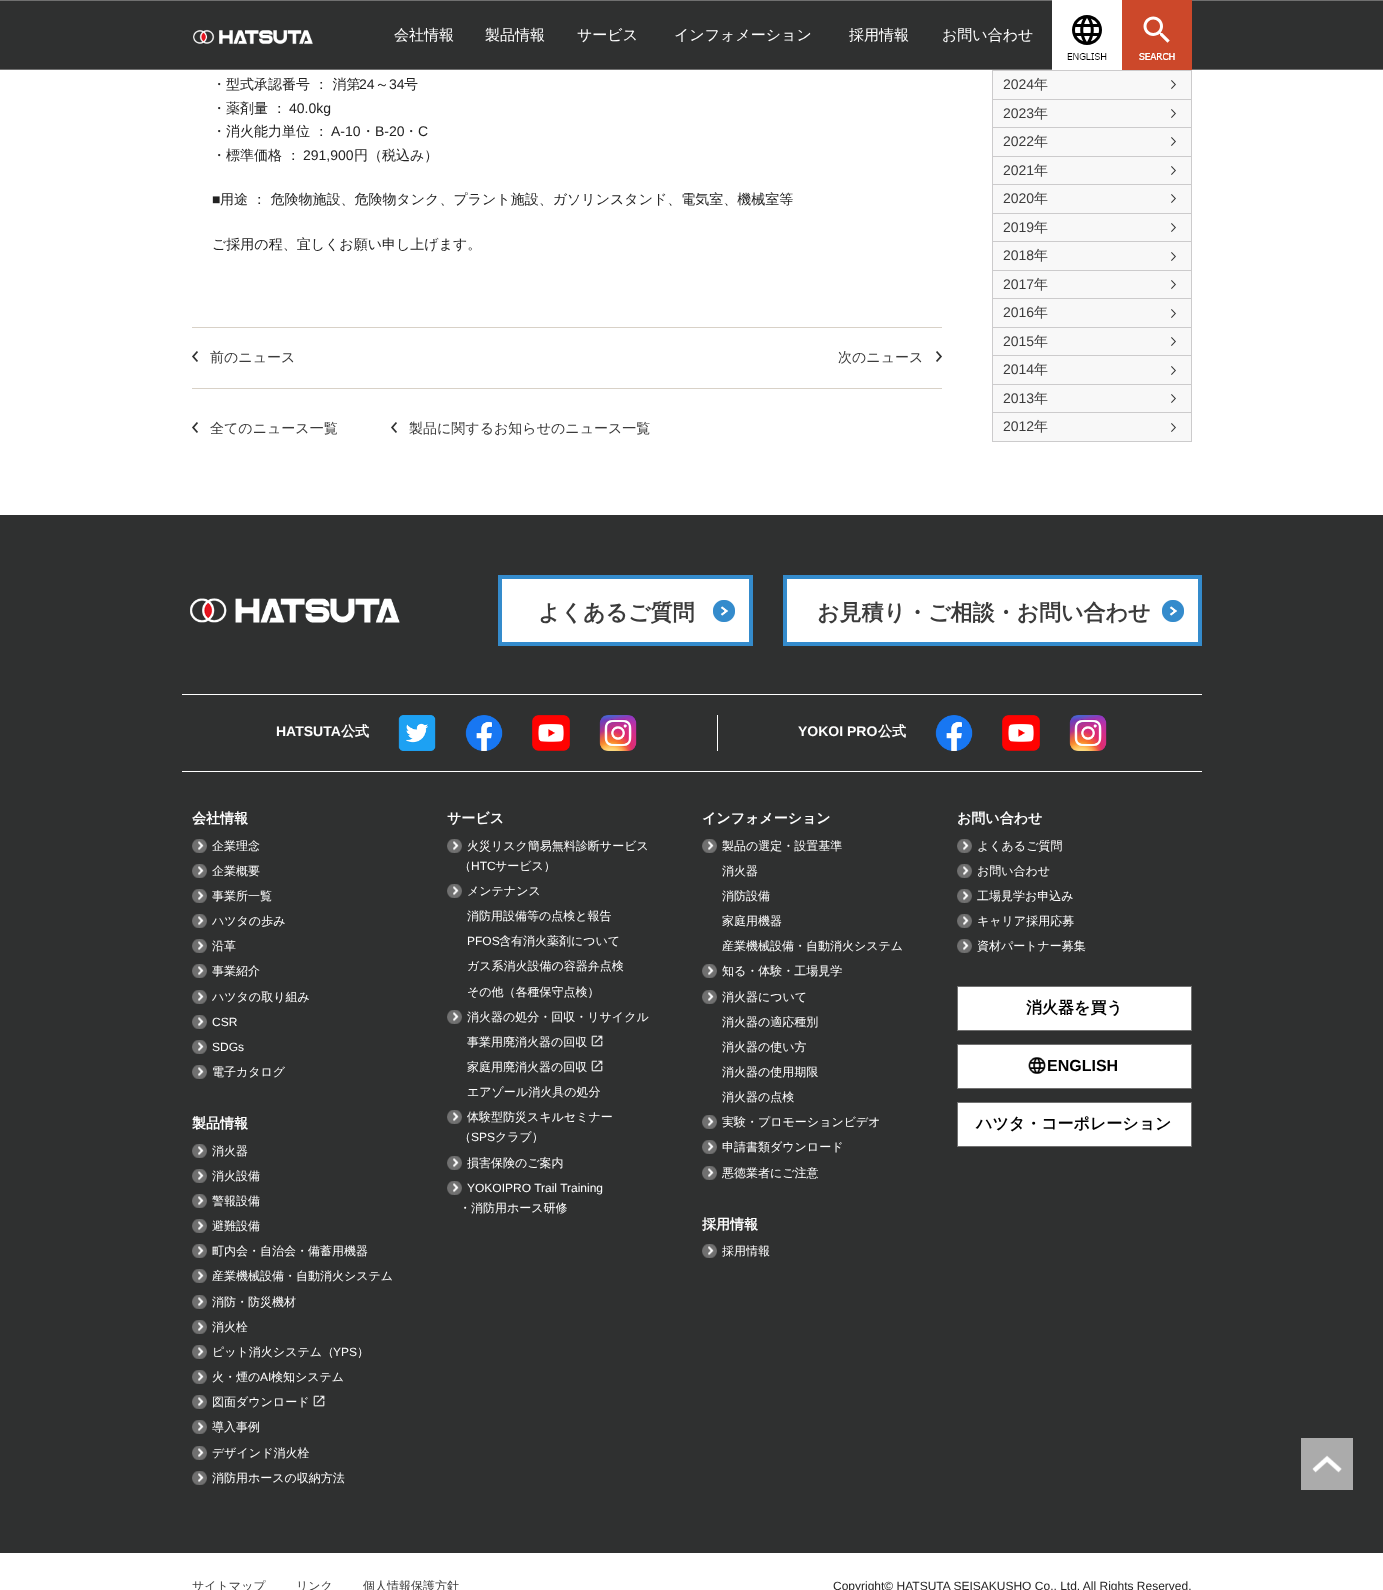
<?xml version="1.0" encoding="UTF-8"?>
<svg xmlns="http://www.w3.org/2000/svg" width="1383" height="1590">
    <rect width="100%" height="100%" fill="#FFFFFF"/>
    <rect x="0" y="1" width="1383" height="68" fill="#2F3030"/>
    <rect x="0" y="0" width="1383" height="1" fill="#707070"/>
    <rect x="0" y="69" width="1383" height="1" fill="#707070"/>
    <image x="193" y="29" width="120" height="16" href="img_01.png"/>
    <text x="394" y="40" font-family="WenQuanYi Zen Hei" font-size="15" font-weight="500" fill="#FFFFFF">会社情報</text>
    <text x="485" y="40" font-family="WenQuanYi Zen Hei" font-size="15" font-weight="500" fill="#FFFFFF">製品情報</text>
    <text x="577" y="40" font-family="WenQuanYi Zen Hei" font-size="15" font-weight="500" fill="#FFFFFF">サービス</text>
    <text x="674" y="40" font-family="WenQuanYi Zen Hei" font-size="15" font-weight="500" fill="#FFFFFF">インフォメーション</text>
    <text x="849" y="40" font-family="WenQuanYi Zen Hei" font-size="15" font-weight="500" fill="#FFFFFF">採用情報</text>
    <text x="942" y="40" font-family="WenQuanYi Zen Hei" font-size="15" font-weight="500" fill="#FFFFFF">お問い合わせ</text>
    <image x="1052" y="0" width="70" height="70" href="img_02.png"/>
    <image x="1122" y="0" width="70" height="70" href="img_03.png"/>
    <text x="212" y="89" font-family="WenQuanYi Zen Hei" font-size="14" font-weight="500" fill="#222222">・型式承認番号 ： 消第</text>
    <text x="359" y="89" font-family="Liberation Sans" font-size="14" fill="#222222">24</text>
    <text x="375" y="89" font-family="WenQuanYi Zen Hei" font-size="14" font-weight="500" fill="#222222">～</text>
    <text x="389" y="89" font-family="Liberation Sans" font-size="14" fill="#222222">34</text>
    <text x="404" y="89" font-family="WenQuanYi Zen Hei" font-size="14" font-weight="500" fill="#222222">号</text>
    <text x="212" y="113" font-family="WenQuanYi Zen Hei" font-size="14" font-weight="500" fill="#222222">・薬剤量 ：</text>
    <text x="289" y="113" font-family="Liberation Sans" font-size="14" fill="#222222">40.0kg</text>
    <text x="212" y="136" font-family="WenQuanYi Zen Hei" font-size="14" font-weight="500" fill="#222222">・消火能力単位 ：</text>
    <text x="331" y="136" font-family="Liberation Sans" font-size="14" fill="#222222">A-10</text>
    <text x="361" y="136" font-family="WenQuanYi Zen Hei" font-size="14" font-weight="500" fill="#222222">・</text>
    <text x="375" y="136" font-family="Liberation Sans" font-size="14" fill="#222222">B-20</text>
    <text x="404" y="136" font-family="WenQuanYi Zen Hei" font-size="14" font-weight="500" fill="#222222">・</text>
    <text x="418" y="136" font-family="Liberation Sans" font-size="14" fill="#222222">C</text>
    <text x="212" y="160" font-family="WenQuanYi Zen Hei" font-size="14" font-weight="500" fill="#222222">・標準価格 ：</text>
    <text x="303" y="160" font-family="Liberation Sans" font-size="14" fill="#222222">291,900</text>
    <text x="354" y="160" font-family="WenQuanYi Zen Hei" font-size="14" font-weight="500" fill="#222222">円（税込み）</text>
    <text x="212" y="204" font-family="Liberation Sans" font-size="14" fill="#222222">■</text>
    <text x="220" y="204" font-family="WenQuanYi Zen Hei" font-size="14" font-weight="500" fill="#222222">用途 ： 危険物施設、危険物タンク、プラント施設、ガソリンスタンド、電気室、機械室等</text>
    <text x="212" y="249" font-family="WenQuanYi Zen Hei" font-size="14" font-weight="500" fill="#222222">ご採用の程、宜しくお願い申し上げます。</text>
    <rect x="192" y="327" width="750" height="1" fill="#D8D1C7"/>
    <rect x="192" y="388" width="750" height="1" fill="#D8D1C7"/>
    <image x="192" y="351" width="6" height="11" href="img_04.png"/>
    <text x="210" y="362" font-family="WenQuanYi Zen Hei" font-size="14" font-weight="500" fill="#3B3B3B">前のニュース</text>
    <text x="838" y="362" font-family="WenQuanYi Zen Hei" font-size="14" font-weight="500" fill="#3B3B3B">次のニュース</text>
    <image x="936" y="351" width="6" height="11" href="img_05.png"/>
    <image x="192" y="422" width="6" height="11" href="img_04.png"/>
    <text x="210" y="433" font-family="WenQuanYi Zen Hei" font-size="14" font-weight="500" fill="#3B3B3B">全てのニュース一覧</text>
    <image x="391" y="422" width="6" height="11" href="img_04.png"/>
    <text x="409" y="433" font-family="WenQuanYi Zen Hei" font-size="14" font-weight="500" fill="#3B3B3B">製品に関するお知らせのニュース一覧</text>
    <rect x="992" y="441" width="200" height="1" fill="#CCCBCC"/>
    <rect x="992" y="70" width="200" height="1" fill="#CCCBCC"/>
    <rect x="1191" y="70" width="1" height="29" fill="#CCCBCC"/>
    <rect x="992" y="70" width="1" height="29" fill="#CCCBCC"/>
    <rect x="993" y="71" width="198" height="28" fill="#F8F8F8"/>
    <image x="1171" y="80" width="5" height="9" href="img_06.png"/>
    <text x="1003" y="89" font-family="Liberation Sans" font-size="14" fill="#3B3B3B">2024</text>
    <text x="1034" y="89" font-family="WenQuanYi Zen Hei" font-size="14" font-weight="500" fill="#3B3B3B">年</text>
    <rect x="992" y="99" width="200" height="1" fill="#CCCBCC"/>
    <rect x="1191" y="99" width="1" height="28" fill="#CCCBCC"/>
    <rect x="992" y="99" width="1" height="28" fill="#CCCBCC"/>
    <rect x="993" y="100" width="198" height="27" fill="#F8F8F8"/>
    <image x="1171" y="109" width="5" height="9" href="img_06.png"/>
    <text x="1003" y="118" font-family="Liberation Sans" font-size="14" fill="#3B3B3B">2023</text>
    <text x="1034" y="118" font-family="WenQuanYi Zen Hei" font-size="14" font-weight="500" fill="#3B3B3B">年</text>
    <rect x="992" y="127" width="200" height="1" fill="#CCCBCC"/>
    <rect x="1191" y="127" width="1" height="29" fill="#CCCBCC"/>
    <rect x="992" y="127" width="1" height="29" fill="#CCCBCC"/>
    <rect x="993" y="128" width="198" height="28" fill="#F8F8F8"/>
    <image x="1171" y="137" width="5" height="9" href="img_06.png"/>
    <text x="1003" y="146" font-family="Liberation Sans" font-size="14" fill="#3B3B3B">2022</text>
    <text x="1034" y="146" font-family="WenQuanYi Zen Hei" font-size="14" font-weight="500" fill="#3B3B3B">年</text>
    <rect x="992" y="156" width="200" height="1" fill="#CCCBCC"/>
    <rect x="1191" y="156" width="1" height="28" fill="#CCCBCC"/>
    <rect x="992" y="156" width="1" height="28" fill="#CCCBCC"/>
    <rect x="993" y="157" width="198" height="27" fill="#F8F8F8"/>
    <image x="1171" y="166" width="5" height="9" href="img_06.png"/>
    <text x="1003" y="175" font-family="Liberation Sans" font-size="14" fill="#3B3B3B">2021</text>
    <text x="1034" y="175" font-family="WenQuanYi Zen Hei" font-size="14" font-weight="500" fill="#3B3B3B">年</text>
    <rect x="992" y="184" width="200" height="1" fill="#CCCBCC"/>
    <rect x="1191" y="184" width="1" height="29" fill="#CCCBCC"/>
    <rect x="992" y="184" width="1" height="29" fill="#CCCBCC"/>
    <rect x="993" y="185" width="198" height="28" fill="#F8F8F8"/>
    <image x="1171" y="194" width="5" height="9" href="img_06.png"/>
    <text x="1003" y="203" font-family="Liberation Sans" font-size="14" fill="#3B3B3B">2020</text>
    <text x="1034" y="203" font-family="WenQuanYi Zen Hei" font-size="14" font-weight="500" fill="#3B3B3B">年</text>
    <rect x="992" y="213" width="200" height="1" fill="#CCCBCC"/>
    <rect x="1191" y="213" width="1" height="28" fill="#CCCBCC"/>
    <rect x="992" y="213" width="1" height="28" fill="#CCCBCC"/>
    <rect x="993" y="214" width="198" height="27" fill="#F8F8F8"/>
    <image x="1171" y="223" width="5" height="9" href="img_06.png"/>
    <text x="1003" y="232" font-family="Liberation Sans" font-size="14" fill="#3B3B3B">2019</text>
    <text x="1034" y="232" font-family="WenQuanYi Zen Hei" font-size="14" font-weight="500" fill="#3B3B3B">年</text>
    <rect x="992" y="241" width="200" height="1" fill="#CCCBCC"/>
    <rect x="1191" y="241" width="1" height="29" fill="#CCCBCC"/>
    <rect x="992" y="241" width="1" height="29" fill="#CCCBCC"/>
    <rect x="993" y="242" width="198" height="28" fill="#F8F8F8"/>
    <image x="1171" y="252" width="5" height="9" href="img_06.png"/>
    <text x="1003" y="260" font-family="Liberation Sans" font-size="14" fill="#3B3B3B">2018</text>
    <text x="1034" y="260" font-family="WenQuanYi Zen Hei" font-size="14" font-weight="500" fill="#3B3B3B">年</text>
    <rect x="992" y="270" width="200" height="1" fill="#CCCBCC"/>
    <rect x="1191" y="270" width="1" height="28" fill="#CCCBCC"/>
    <rect x="992" y="270" width="1" height="28" fill="#CCCBCC"/>
    <rect x="993" y="271" width="198" height="27" fill="#F8F8F8"/>
    <image x="1171" y="280" width="5" height="9" href="img_06.png"/>
    <text x="1003" y="289" font-family="Liberation Sans" font-size="14" fill="#3B3B3B">2017</text>
    <text x="1034" y="289" font-family="WenQuanYi Zen Hei" font-size="14" font-weight="500" fill="#3B3B3B">年</text>
    <rect x="992" y="298" width="200" height="1" fill="#CCCBCC"/>
    <rect x="1191" y="298" width="1" height="29" fill="#CCCBCC"/>
    <rect x="992" y="298" width="1" height="29" fill="#CCCBCC"/>
    <rect x="993" y="299" width="198" height="28" fill="#F8F8F8"/>
    <image x="1171" y="309" width="5" height="9" href="img_06.png"/>
    <text x="1003" y="317" font-family="Liberation Sans" font-size="14" fill="#3B3B3B">2016</text>
    <text x="1034" y="317" font-family="WenQuanYi Zen Hei" font-size="14" font-weight="500" fill="#3B3B3B">年</text>
    <rect x="992" y="327" width="200" height="1" fill="#CCCBCC"/>
    <rect x="1191" y="327" width="1" height="28" fill="#CCCBCC"/>
    <rect x="992" y="327" width="1" height="28" fill="#CCCBCC"/>
    <rect x="993" y="328" width="198" height="27" fill="#F8F8F8"/>
    <image x="1171" y="337" width="5" height="9" href="img_06.png"/>
    <text x="1003" y="346" font-family="Liberation Sans" font-size="14" fill="#3B3B3B">2015</text>
    <text x="1034" y="346" font-family="WenQuanYi Zen Hei" font-size="14" font-weight="500" fill="#3B3B3B">年</text>
    <rect x="992" y="355" width="200" height="1" fill="#CCCBCC"/>
    <rect x="1191" y="355" width="1" height="29" fill="#CCCBCC"/>
    <rect x="992" y="355" width="1" height="29" fill="#CCCBCC"/>
    <rect x="993" y="356" width="198" height="28" fill="#F8F8F8"/>
    <image x="1171" y="366" width="5" height="9" href="img_06.png"/>
    <text x="1003" y="374" font-family="Liberation Sans" font-size="14" fill="#3B3B3B">2014</text>
    <text x="1034" y="374" font-family="WenQuanYi Zen Hei" font-size="14" font-weight="500" fill="#3B3B3B">年</text>
    <rect x="992" y="384" width="200" height="1" fill="#CCCBCC"/>
    <rect x="1191" y="384" width="1" height="28" fill="#CCCBCC"/>
    <rect x="992" y="384" width="1" height="28" fill="#CCCBCC"/>
    <rect x="993" y="385" width="198" height="27" fill="#F8F8F8"/>
    <image x="1171" y="394" width="5" height="9" href="img_06.png"/>
    <text x="1003" y="403" font-family="Liberation Sans" font-size="14" fill="#3B3B3B">2013</text>
    <text x="1034" y="403" font-family="WenQuanYi Zen Hei" font-size="14" font-weight="500" fill="#3B3B3B">年</text>
    <rect x="992" y="412" width="200" height="1" fill="#CCCBCC"/>
    <rect x="1191" y="412" width="1" height="29" fill="#CCCBCC"/>
    <rect x="992" y="412" width="1" height="29" fill="#CCCBCC"/>
    <rect x="993" y="413" width="198" height="28" fill="#F8F8F8"/>
    <image x="1171" y="423" width="5" height="9" href="img_06.png"/>
    <text x="1003" y="431" font-family="Liberation Sans" font-size="14" fill="#3B3B3B">2012</text>
    <text x="1034" y="431" font-family="WenQuanYi Zen Hei" font-size="14" font-weight="500" fill="#3B3B3B">年</text>
    <rect x="0" y="515" width="1383" height="1038" fill="#2F3030"/>
    <rect x="182" y="694" width="1020" height="1" fill="#FFFFFF"/>
    <image x="190" y="598" width="210" height="25" href="img_07.png"/>
    <rect x="502" y="579" width="247" height="63" fill="#FFFFFF"/>
    <image x="713" y="600" width="22" height="22" href="img_08.png"/>
    <rect x="500" y="577" width="251" height="67" fill="none" stroke="#348BCC" stroke-width="4"/>
    <text x="538" y="620" font-family="WenQuanYi Zen Hei" font-size="22" font-weight="700" fill="#3B3B3B">よくあるご質問</text>
    <rect x="787" y="579" width="411" height="63" fill="#FFFFFF"/>
    <image x="1162" y="600" width="22" height="22" href="img_08.png"/>
    <rect x="785" y="577" width="415" height="67" fill="none" stroke="#348BCC" stroke-width="4"/>
    <text x="817" y="620" font-family="WenQuanYi Zen Hei" font-size="22" font-weight="700" fill="#3B3B3B">お見積り・ご相談・お問い合わせ</text>
    <rect x="182" y="771" width="1020" height="1" fill="#FFFFFF"/>
    <text x="276" y="736" font-family="Liberation Sans" font-size="14" font-weight="700" fill="#FFFFFF">HATSUTA</text>
    <text x="341" y="736" font-family="WenQuanYi Zen Hei" font-size="14" font-weight="700" fill="#FFFFFF">公式</text>
    <image x="398" y="715" width="38" height="36" href="img_09.png"/>
    <image x="465" y="715" width="38" height="36" href="img_10.png"/>
    <image x="532" y="715" width="38" height="36" href="img_11.png"/>
    <image x="599" y="715" width="38" height="36" href="img_12.png"/>
    <rect x="717" y="715" width="1" height="36" fill="#FFFFFF"/>
    <text x="798" y="736" font-family="Liberation Sans" font-size="14" font-weight="700" fill="#FFFFFF">YOKOI PRO</text>
    <text x="878" y="736" font-family="WenQuanYi Zen Hei" font-size="14" font-weight="700" fill="#FFFFFF">公式</text>
    <image x="935" y="715" width="38" height="36" href="img_10.png"/>
    <image x="1002" y="715" width="38" height="36" href="img_13.png"/>
    <image x="1069" y="715" width="38" height="36" href="img_14.png"/>
    <text x="192" y="823" font-family="WenQuanYi Zen Hei" font-size="14" font-weight="700" fill="#FFFFFF">会社情報</text>
    <image x="192" y="839" width="15" height="14" href="img_15.png"/>
    <text x="212" y="850" font-family="WenQuanYi Zen Hei" font-size="12" font-weight="500" fill="#FFFFFF">企業理念</text>
    <image x="192" y="864" width="15" height="14" href="img_15.png"/>
    <text x="212" y="875" font-family="WenQuanYi Zen Hei" font-size="12" font-weight="500" fill="#FFFFFF">企業概要</text>
    <image x="192" y="889" width="15" height="14" href="img_15.png"/>
    <text x="212" y="900" font-family="WenQuanYi Zen Hei" font-size="12" font-weight="500" fill="#FFFFFF">事業所一覧</text>
    <image x="192" y="914" width="15" height="14" href="img_15.png"/>
    <text x="212" y="925" font-family="WenQuanYi Zen Hei" font-size="12" font-weight="500" fill="#FFFFFF">ハツタの歩み</text>
    <image x="192" y="939" width="15" height="14" href="img_15.png"/>
    <text x="212" y="950" font-family="WenQuanYi Zen Hei" font-size="12" font-weight="500" fill="#FFFFFF">沿革</text>
    <image x="192" y="964" width="15" height="14" href="img_15.png"/>
    <text x="212" y="975" font-family="WenQuanYi Zen Hei" font-size="12" font-weight="500" fill="#FFFFFF">事業紹介</text>
    <image x="192" y="990" width="15" height="14" href="img_15.png"/>
    <text x="212" y="1001" font-family="WenQuanYi Zen Hei" font-size="12" font-weight="500" fill="#FFFFFF">ハツタの取り組み</text>
    <image x="192" y="1015" width="15" height="14" href="img_15.png"/>
    <text x="212" y="1026" font-family="Liberation Sans" font-size="12" fill="#FFFFFF">CSR</text>
    <image x="192" y="1040" width="15" height="14" href="img_15.png"/>
    <text x="212" y="1051" font-family="Liberation Sans" font-size="12" fill="#FFFFFF">SDGs</text>
    <image x="192" y="1065" width="15" height="14" href="img_15.png"/>
    <text x="212" y="1076" font-family="WenQuanYi Zen Hei" font-size="12" font-weight="500" fill="#FFFFFF">電子カタログ</text>
    <text x="192" y="1128" font-family="WenQuanYi Zen Hei" font-size="14" font-weight="700" fill="#FFFFFF">製品情報</text>
    <image x="192" y="1144" width="15" height="14" href="img_15.png"/>
    <text x="212" y="1155" font-family="WenQuanYi Zen Hei" font-size="12" font-weight="500" fill="#FFFFFF">消火器</text>
    <image x="192" y="1169" width="15" height="14" href="img_15.png"/>
    <text x="212" y="1180" font-family="WenQuanYi Zen Hei" font-size="12" font-weight="500" fill="#FFFFFF">消火設備</text>
    <image x="192" y="1194" width="15" height="14" href="img_15.png"/>
    <text x="212" y="1205" font-family="WenQuanYi Zen Hei" font-size="12" font-weight="500" fill="#FFFFFF">警報設備</text>
    <image x="192" y="1219" width="15" height="14" href="img_15.png"/>
    <text x="212" y="1230" font-family="WenQuanYi Zen Hei" font-size="12" font-weight="500" fill="#FFFFFF">避難設備</text>
    <image x="192" y="1244" width="15" height="14" href="img_15.png"/>
    <text x="212" y="1255" font-family="WenQuanYi Zen Hei" font-size="12" font-weight="500" fill="#FFFFFF">町内会・自治会・備蓄用機器</text>
    <image x="192" y="1269" width="15" height="14" href="img_15.png"/>
    <text x="212" y="1280" font-family="WenQuanYi Zen Hei" font-size="12" font-weight="500" fill="#FFFFFF">産業機械設備・自動消火システム</text>
    <image x="192" y="1295" width="15" height="14" href="img_15.png"/>
    <text x="212" y="1306" font-family="WenQuanYi Zen Hei" font-size="12" font-weight="500" fill="#FFFFFF">消防・防災機材</text>
    <image x="192" y="1320" width="15" height="14" href="img_15.png"/>
    <text x="212" y="1331" font-family="WenQuanYi Zen Hei" font-size="12" font-weight="500" fill="#FFFFFF">消火栓</text>
    <image x="192" y="1345" width="15" height="14" href="img_15.png"/>
    <text x="212" y="1356" font-family="WenQuanYi Zen Hei" font-size="12" font-weight="500" fill="#FFFFFF">ピット消火システム（</text>
    <text x="333" y="1356" font-family="Liberation Sans" font-size="12" fill="#FFFFFF">YPS</text>
    <text x="357" y="1356" font-family="WenQuanYi Zen Hei" font-size="12" font-weight="500" fill="#FFFFFF">）</text>
    <image x="192" y="1370" width="15" height="14" href="img_15.png"/>
    <text x="212" y="1381" font-family="WenQuanYi Zen Hei" font-size="12" font-weight="500" fill="#FFFFFF">火・煙の</text>
    <text x="260" y="1381" font-family="Liberation Sans" font-size="12" fill="#FFFFFF">AI</text>
    <text x="271" y="1381" font-family="WenQuanYi Zen Hei" font-size="12" font-weight="500" fill="#FFFFFF">検知システム</text>
    <image x="192" y="1395" width="15" height="14" href="img_15.png"/>
    <text x="212" y="1406" font-family="WenQuanYi Zen Hei" font-size="12" font-weight="500" fill="#FFFFFF">図面ダウンロード</text>
    <image x="313" y="1395" width="12" height="12" href="img_16.png"/>
    <image x="192" y="1420" width="15" height="14" href="img_15.png"/>
    <text x="212" y="1431" font-family="WenQuanYi Zen Hei" font-size="12" font-weight="500" fill="#FFFFFF">導入事例</text>
    <image x="192" y="1446" width="15" height="14" href="img_15.png"/>
    <text x="212" y="1457" font-family="WenQuanYi Zen Hei" font-size="12" font-weight="500" fill="#FFFFFF">デザインド消火栓</text>
    <image x="192" y="1471" width="15" height="14" href="img_15.png"/>
    <text x="212" y="1482" font-family="WenQuanYi Zen Hei" font-size="12" font-weight="500" fill="#FFFFFF">消防用ホースの収納方法</text>
    <text x="447" y="823" font-family="WenQuanYi Zen Hei" font-size="14" font-weight="700" fill="#FFFFFF">サービス</text>
    <image x="447" y="839" width="15" height="14" href="img_15.png"/>
    <text x="467" y="850" font-family="WenQuanYi Zen Hei" font-size="12" font-weight="500" fill="#FFFFFF">火災リスク簡易無料診断サービス</text>
    <text x="459" y="870" font-family="WenQuanYi Zen Hei" font-size="12" font-weight="500" fill="#FFFFFF">（</text>
    <text x="471" y="870" font-family="Liberation Sans" font-size="12" fill="#FFFFFF">HTC</text>
    <text x="495" y="870" font-family="WenQuanYi Zen Hei" font-size="12" font-weight="500" fill="#FFFFFF">サービス）</text>
    <image x="447" y="884" width="15" height="14" href="img_15.png"/>
    <text x="467" y="895" font-family="WenQuanYi Zen Hei" font-size="12" font-weight="500" fill="#FFFFFF">メンテナンス</text>
    <text x="467" y="920" font-family="WenQuanYi Zen Hei" font-size="12" font-weight="500" fill="#FFFFFF">消防用設備等の点検と報告</text>
    <text x="467" y="945" font-family="Liberation Sans" font-size="12" fill="#FFFFFF">PFOS</text>
    <text x="499" y="945" font-family="WenQuanYi Zen Hei" font-size="12" font-weight="500" fill="#FFFFFF">含有消火薬剤について</text>
    <text x="467" y="970" font-family="WenQuanYi Zen Hei" font-size="12" font-weight="500" fill="#FFFFFF">ガス系消火設備の容器弁点検</text>
    <text x="467" y="996" font-family="WenQuanYi Zen Hei" font-size="12" font-weight="500" fill="#FFFFFF">その他（各種保守点検）</text>
    <image x="447" y="1010" width="15" height="14" href="img_15.png"/>
    <text x="467" y="1021" font-family="WenQuanYi Zen Hei" font-size="12" font-weight="500" fill="#FFFFFF">消火器の処分・回収・リサイクル</text>
    <text x="467" y="1046" font-family="WenQuanYi Zen Hei" font-size="12" font-weight="500" fill="#FFFFFF">事業用廃消火器の回収</text>
    <image x="591" y="1035" width="12" height="12" href="img_17.png"/>
    <text x="467" y="1071" font-family="WenQuanYi Zen Hei" font-size="12" font-weight="500" fill="#FFFFFF">家庭用廃消火器の回収</text>
    <image x="591" y="1060" width="12" height="12" href="img_18.png"/>
    <text x="467" y="1096" font-family="WenQuanYi Zen Hei" font-size="12" font-weight="500" fill="#FFFFFF">エアゾール消火具の処分</text>
    <image x="447" y="1110" width="15" height="14" href="img_15.png"/>
    <text x="467" y="1121" font-family="WenQuanYi Zen Hei" font-size="12" font-weight="500" fill="#FFFFFF">体験型防災スキルセミナー</text>
    <text x="459" y="1141" font-family="WenQuanYi Zen Hei" font-size="12" font-weight="500" fill="#FFFFFF">（</text>
    <text x="471" y="1141" font-family="Liberation Sans" font-size="12" fill="#FFFFFF">SPS</text>
    <text x="495" y="1141" font-family="WenQuanYi Zen Hei" font-size="12" font-weight="500" fill="#FFFFFF">クラブ）</text>
    <image x="447" y="1156" width="15" height="14" href="img_15.png"/>
    <text x="467" y="1167" font-family="WenQuanYi Zen Hei" font-size="12" font-weight="500" fill="#FFFFFF">損害保険のご案内</text>
    <image x="447" y="1181" width="15" height="14" href="img_15.png"/>
    <text x="467" y="1192" font-family="Liberation Sans" font-size="12" fill="#FFFFFF">YOKOIPRO Trail Training</text>
    <text x="459" y="1212" font-family="WenQuanYi Zen Hei" font-size="12" font-weight="500" fill="#FFFFFF">・消防用ホース研修</text>
    <text x="702" y="823" font-family="WenQuanYi Zen Hei" font-size="14" font-weight="700" fill="#FFFFFF">インフォメーション</text>
    <image x="702" y="839" width="15" height="14" href="img_15.png"/>
    <text x="722" y="850" font-family="WenQuanYi Zen Hei" font-size="12" font-weight="500" fill="#FFFFFF">製品の選定・設置基準</text>
    <text x="722" y="875" font-family="WenQuanYi Zen Hei" font-size="12" font-weight="500" fill="#FFFFFF">消火器</text>
    <text x="722" y="900" font-family="WenQuanYi Zen Hei" font-size="12" font-weight="500" fill="#FFFFFF">消防設備</text>
    <text x="722" y="925" font-family="WenQuanYi Zen Hei" font-size="12" font-weight="500" fill="#FFFFFF">家庭用機器</text>
    <text x="722" y="950" font-family="WenQuanYi Zen Hei" font-size="12" font-weight="500" fill="#FFFFFF">産業機械設備・自動消火システム</text>
    <image x="702" y="964" width="15" height="14" href="img_15.png"/>
    <text x="722" y="975" font-family="WenQuanYi Zen Hei" font-size="12" font-weight="500" fill="#FFFFFF">知る・体験・工場見学</text>
    <image x="702" y="990" width="15" height="14" href="img_15.png"/>
    <text x="722" y="1001" font-family="WenQuanYi Zen Hei" font-size="12" font-weight="500" fill="#FFFFFF">消火器について</text>
    <text x="722" y="1026" font-family="WenQuanYi Zen Hei" font-size="12" font-weight="500" fill="#FFFFFF">消火器の適応種別</text>
    <text x="722" y="1051" font-family="WenQuanYi Zen Hei" font-size="12" font-weight="500" fill="#FFFFFF">消火器の使い方</text>
    <text x="722" y="1076" font-family="WenQuanYi Zen Hei" font-size="12" font-weight="500" fill="#FFFFFF">消火器の使用期限</text>
    <text x="722" y="1101" font-family="WenQuanYi Zen Hei" font-size="12" font-weight="500" fill="#FFFFFF">消火器の点検</text>
    <image x="702" y="1115" width="15" height="14" href="img_15.png"/>
    <text x="722" y="1126" font-family="WenQuanYi Zen Hei" font-size="12" font-weight="500" fill="#FFFFFF">実験・プロモーションビデオ</text>
    <image x="702" y="1140" width="15" height="14" href="img_15.png"/>
    <text x="722" y="1151" font-family="WenQuanYi Zen Hei" font-size="12" font-weight="500" fill="#FFFFFF">申請書類ダウンロード</text>
    <image x="702" y="1166" width="15" height="14" href="img_15.png"/>
    <text x="722" y="1177" font-family="WenQuanYi Zen Hei" font-size="12" font-weight="500" fill="#FFFFFF">悪徳業者にご注意</text>
    <text x="702" y="1229" font-family="WenQuanYi Zen Hei" font-size="14" font-weight="700" fill="#FFFFFF">採用情報</text>
    <image x="702" y="1244" width="15" height="14" href="img_15.png"/>
    <text x="722" y="1255" font-family="WenQuanYi Zen Hei" font-size="12" font-weight="500" fill="#FFFFFF">採用情報</text>
    <text x="957" y="823" font-family="WenQuanYi Zen Hei" font-size="14" font-weight="700" fill="#FFFFFF">お問い合わせ</text>
    <image x="957" y="839" width="15" height="14" href="img_15.png"/>
    <text x="977" y="850" font-family="WenQuanYi Zen Hei" font-size="12" font-weight="500" fill="#FFFFFF">よくあるご質問</text>
    <image x="957" y="864" width="15" height="14" href="img_15.png"/>
    <text x="977" y="875" font-family="WenQuanYi Zen Hei" font-size="12" font-weight="500" fill="#FFFFFF">お問い合わせ</text>
    <image x="957" y="889" width="15" height="14" href="img_15.png"/>
    <text x="977" y="900" font-family="WenQuanYi Zen Hei" font-size="12" font-weight="500" fill="#FFFFFF">工場見学お申込み</text>
    <image x="957" y="914" width="15" height="14" href="img_15.png"/>
    <text x="977" y="925" font-family="WenQuanYi Zen Hei" font-size="12" font-weight="500" fill="#FFFFFF">キャリア採用応募</text>
    <image x="957" y="939" width="15" height="14" href="img_15.png"/>
    <text x="977" y="950" font-family="WenQuanYi Zen Hei" font-size="12" font-weight="500" fill="#FFFFFF">資材パートナー募集</text>
    <rect x="957.5" y="986.5" width="234" height="44" fill="#FFFFFF" stroke="#707070"/>
    <text x="1026" y="1013" font-family="WenQuanYi Zen Hei" font-size="16" font-weight="700" fill="#000000">消火器を買う</text>
    <rect x="957.5" y="1044.5" width="234" height="44" fill="#FFFFFF" stroke="#707070"/>
    <image x="1028" y="1057" width="18" height="17" href="img_19.png"/>
    <text x="1047" y="1071" font-family="Liberation Sans" font-size="16" font-weight="700" fill="#000000">ENGLISH</text>
    <rect x="957.5" y="1102.5" width="234" height="44" fill="#FFFFFF" stroke="#707070"/>
    <text x="976" y="1129" font-family="WenQuanYi Zen Hei" font-size="16" font-weight="700" fill="#000000">ハツタ・コーポレーション</text>
    <text x="192" y="1590" font-family="WenQuanYi Zen Hei" font-size="12" font-weight="500" fill="#3B3B3B">サイトマップ</text>
    <text x="296" y="1590" font-family="WenQuanYi Zen Hei" font-size="12" font-weight="500" fill="#3B3B3B">リンク</text>
    <text x="363" y="1590" font-family="WenQuanYi Zen Hei" font-size="12" font-weight="500" fill="#3B3B3B">個人情報保護方針</text>
    <text x="833" y="1590" font-family="Liberation Sans" font-size="12" fill="#222222">Copyright© HATSUTA SEISAKUSHO Co., Ltd. All Rights Reserved.</text>
    <image x="1301" y="1438" width="52" height="52" href="img_20.png"/>
</svg>
